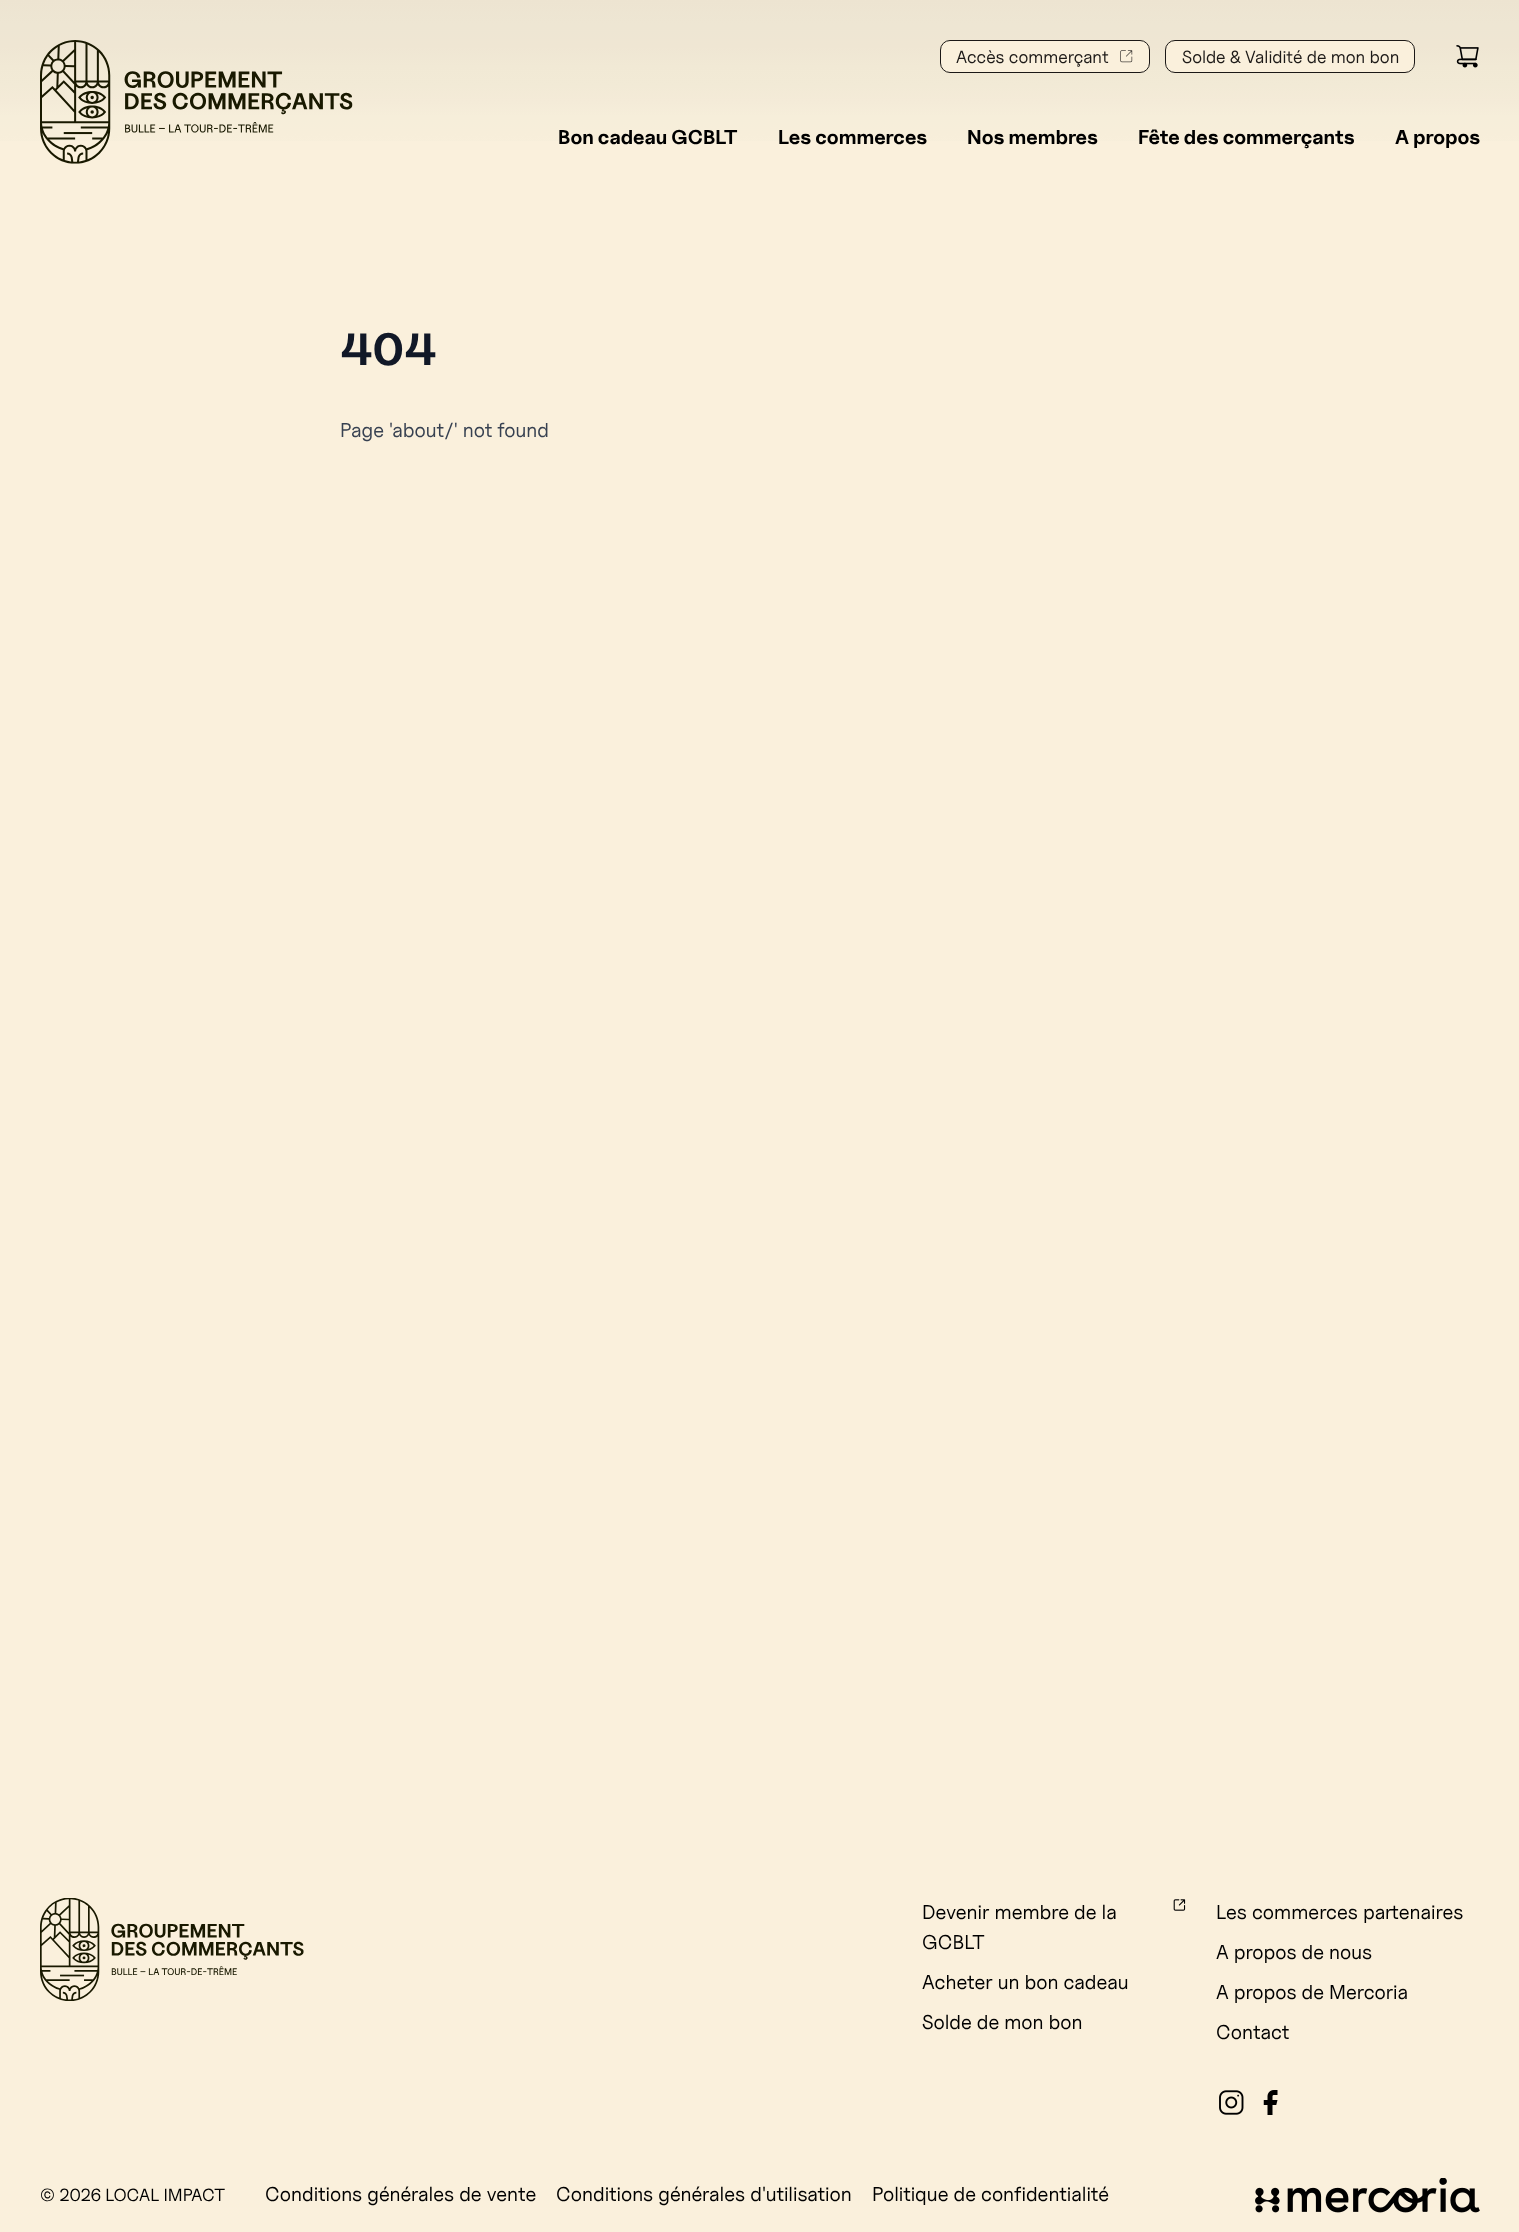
<?xml version="1.0" encoding="UTF-8"?>
<svg xmlns="http://www.w3.org/2000/svg" width="1519" height="2232">
    <defs>
        <linearGradient id="g1" gradientUnits="userSpaceOnUse" x1="760" y1="0" x2="760" y2="185"><stop offset="0" stop-color="#EDE4D1"/><stop offset="0.13" stop-color="#EEE6D3"/><stop offset="0.25" stop-color="#EFE6D3"/><stop offset="0.36" stop-color="#F1E9D5"/><stop offset="0.46" stop-color="#F2EAD6"/><stop offset="0.55" stop-color="#F4EBD8"/><stop offset="0.63" stop-color="#F6EEDA"/><stop offset="0.72" stop-color="#F7EEDA"/><stop offset="0.8" stop-color="#F8EFDB"/><stop offset="0.9" stop-color="#F9F0DC"/><stop offset="1" stop-color="#F9F0DC"/></linearGradient>
    </defs>
    <rect width="100%" height="100%" fill="#FAF0DC"/>
    <rect x="0" y="0" width="1519" height="141" fill="url(#g1)"/>
    <image x="40" y="40" width="313" height="124" href="img_01.png"/>
    <rect x="940.5" y="40.5" width="209" height="32" rx="9.5" fill="#FAF0DC" stroke="#1C1917"/>
    <text x="956" y="63" font-family="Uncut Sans" font-size="17.5" fill="#1C1917">Accès commerçant</text>
    <image x="1120" y="50" width="13" height="13" href="img_02.png"/>
    <rect x="1165.5" y="40.5" width="249" height="32" rx="9.5" fill="#FAF0DC" stroke="#1C1917"/>
    <text x="1182" y="63" font-family="Uncut Sans" font-size="17.5" fill="#1C1917">Solde &amp; Validité de mon bon</text>
    <image x="1456" y="45" width="23" height="23" href="img_03.png"/>
    <text x="558" y="144" font-family="Uncut Sans" font-size="20" font-weight="700" fill="#000000">Bon cadeau GCBLT</text>
    <text x="778" y="144" font-family="Uncut Sans" font-size="20" font-weight="700" fill="#000000">Les commerces</text>
    <text x="967" y="144" font-family="Uncut Sans" font-size="20" font-weight="700" fill="#000000">Nos membres</text>
    <text x="1138" y="144" font-family="Uncut Sans" font-size="20" font-weight="700" fill="#000000">Fête des commerçants</text>
    <text x="1395" y="144" font-family="Uncut Sans" font-size="20" font-weight="700" fill="#000000">A propos</text>
    <text x="340" y="365" font-family="Uncut Sans" font-size="45" font-weight="700" fill="#111827">404</text>
    <text x="340" y="437" font-family="Uncut Sans" font-size="20" fill="#374151">Page 'about/' not found</text>
    <image x="40" y="1898" width="264" height="103" href="img_04.png"/>
    <text font-family="Uncut Sans" font-size="20" fill="#000000">
        <tspan x="922" y="1919">Devenir membre de la</tspan>
        <tspan x="922" y="1949">GCBLT</tspan>
    </text>
    <image x="1173" y="1899" width="13" height="12" href="img_05.png"/>
    <text x="922" y="1989" font-family="Uncut Sans" font-size="20" fill="#000000">Acheter un bon cadeau</text>
    <text x="922" y="2029" font-family="Uncut Sans" font-size="20" fill="#000000">Solde de mon bon</text>
    <text x="1216" y="1919" font-family="Uncut Sans" font-size="20" fill="#000000">Les commerces partenaires</text>
    <text x="1216" y="1959" font-family="Uncut Sans" font-size="20" fill="#000000">A propos de nous</text>
    <text x="1216" y="1999" font-family="Uncut Sans" font-size="20" fill="#000000">A propos de Mercoria</text>
    <text x="1216" y="2039" font-family="Uncut Sans" font-size="20" fill="#000000">Contact</text>
    <image x="1219" y="2090" width="25" height="25" href="img_06.png"/>
    <image x="1263" y="2090" width="15" height="25" href="img_07.png"/>
    <text x="40" y="2201" font-family="Uncut Sans" font-size="17.5" fill="#000000">© 2026 LOCAL IMPACT</text>
    <text x="265" y="2201" font-family="Uncut Sans" font-size="20" fill="#000000">Conditions générales de vente</text>
    <text x="556" y="2201" font-family="Uncut Sans" font-size="20" fill="#000000">Conditions générales d'utilisation</text>
    <text x="872" y="2201" font-family="Uncut Sans" font-size="20" fill="#000000">Politique de confidentialité</text>
    <image x="1255" y="2178" width="225" height="35" href="img_08.png"/>
</svg>
